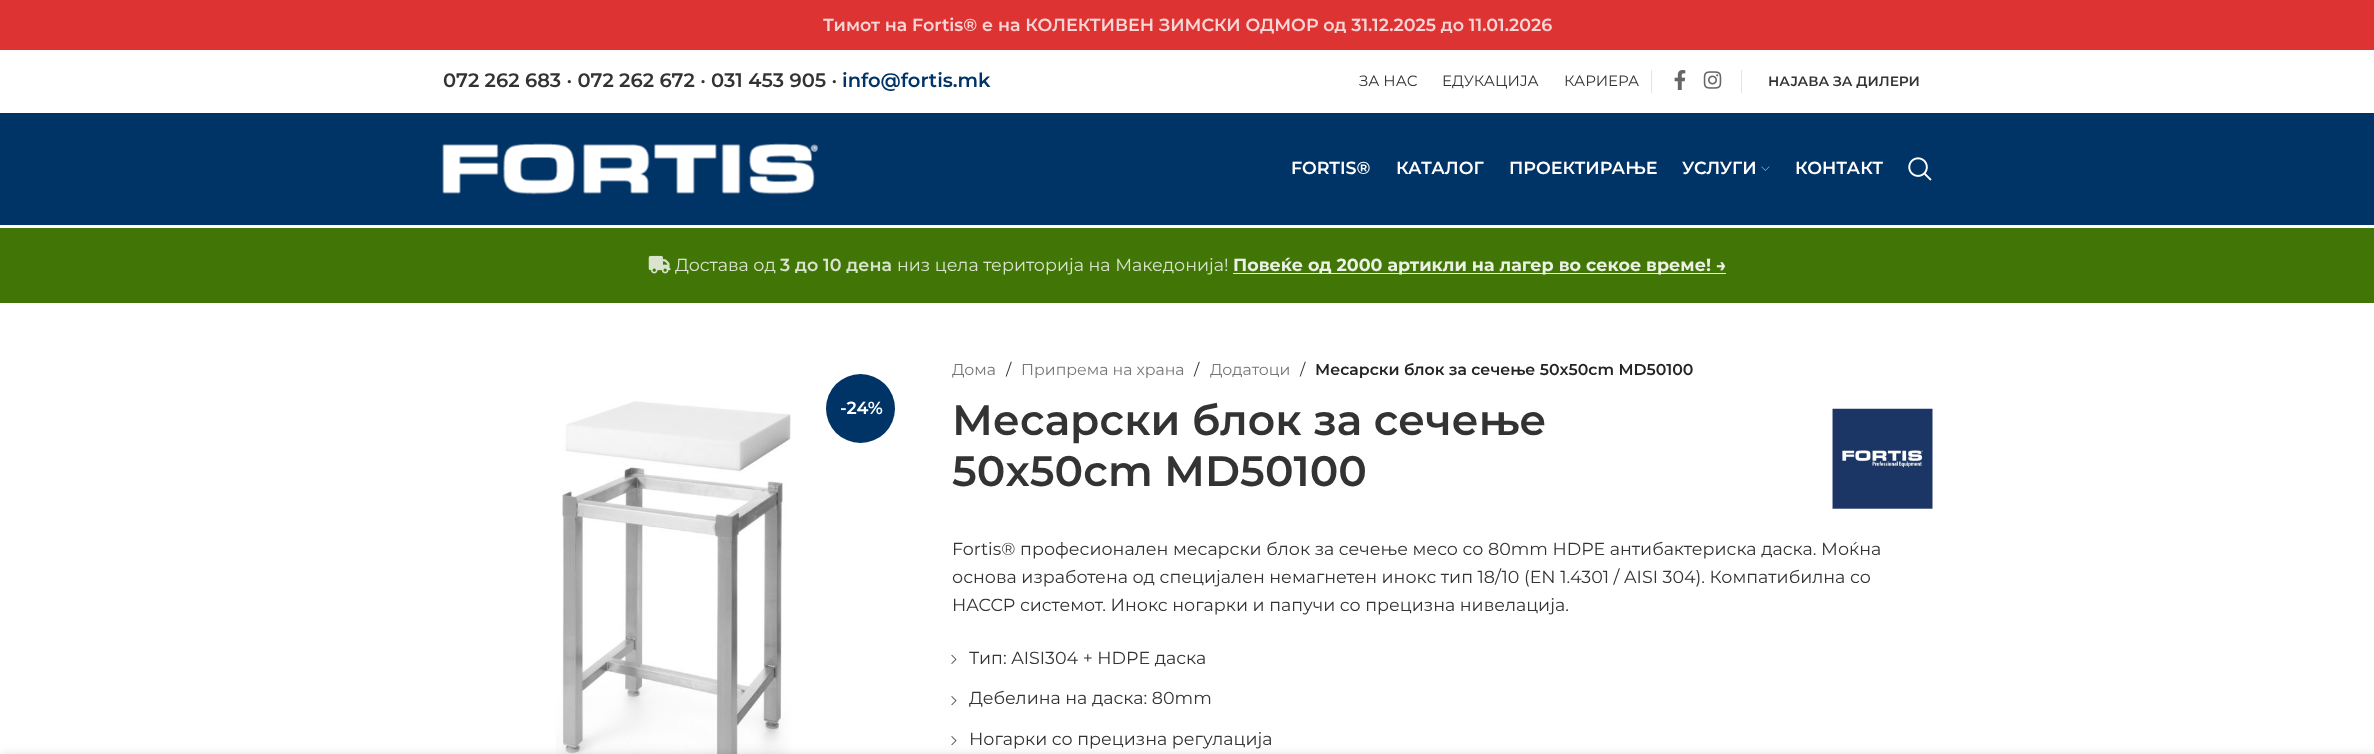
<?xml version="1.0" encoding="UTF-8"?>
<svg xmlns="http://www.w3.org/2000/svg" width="2374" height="754">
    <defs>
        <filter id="blur1" x="-50%" y="-200%" width="200%" height="500%"><feGaussianBlur stdDeviation="5.5"/></filter>
    </defs>
    <rect width="100%" height="100%" fill="#FFFFFF"/>
    <rect x="0" y="0" width="2374" height="50" fill="#DD3333"/>
    <text x="823" y="31" font-family="Montserrat" font-size="17.5" font-weight="600" fill="#F8D6D6">Тимот на Fortis® е на КОЛЕКТИВЕН ЗИМСКИ ОДМОР од 31.12.2025 до 11.01.2026</text>
    <text x="443" y="87" font-family="Montserrat" font-size="19.5" font-weight="600" fill="#333333">072 262 683 · 072 262 672 · 031 453 905 ·</text>
    <text x="842" y="87" font-family="Montserrat" font-size="19.5" font-weight="600" fill="#003366">info@fortis.mk</text>
    <text x="1359" y="86" font-family="Montserrat" font-size="15" fill="#333333">ЗА НАС</text>
    <text x="1442" y="86" font-family="Montserrat" font-size="15" fill="#333333">ЕДУКАЦИЈА</text>
    <text x="1564" y="86" font-family="Montserrat" font-size="15" fill="#333333">КАРИЕРА</text>
    <rect x="1651" y="70" width="1" height="23" fill="#E4E4E4"/>
    <image x="1674" y="70" width="12" height="20" href="img_01.png"/>
    <image x="1703" y="71" width="19" height="18" href="img_02.png"/>
    <rect x="1741" y="70" width="1" height="23" fill="#E4E4E4"/>
    <text x="1768" y="86" font-family="Montserrat" font-size="13.75" font-weight="600" fill="#333333">НАЈАВА ЗА ДИЛЕРИ</text>
    <rect x="0" y="113" width="2374" height="112" fill="#003366"/>
    <image x="442" y="143" width="376" height="52" href="img_03.png"/>
    <text x="1291" y="174" font-family="Montserrat" font-size="17.5" font-weight="600" fill="#FFFFFF">FORTIS®</text>
    <text x="1396" y="174" font-family="Montserrat" font-size="17.5" font-weight="600" fill="#FFFFFF">КАТАЛОГ</text>
    <text x="1509" y="174" font-family="Montserrat" font-size="17.5" font-weight="600" fill="#FFFFFF">ПРОЕКТИРАЊЕ</text>
    <text x="1682" y="174" font-family="Montserrat" font-size="17.5" font-weight="600" fill="#FFFFFF">УСЛУГИ</text>
    <image x="1761" y="166" width="9" height="5" href="img_04.png"/>
    <text x="1795" y="174" font-family="Montserrat" font-size="17.5" font-weight="600" fill="#FFFFFF">КОНТАКТ</text>
    <image x="1908" y="157" width="24" height="24" href="img_05.png"/>
    <rect x="0" y="228" width="2374" height="75" fill="#417505"/>
    <image x="648" y="255" width="23" height="19" href="img_06.png"/>
    <text x="675" y="271" font-family="Montserrat" font-size="17.5" fill="#D9E3CD">Достава од</text>
    <text x="780" y="271" font-family="Montserrat" font-size="17.5" font-weight="600" fill="#D9E3CD">3 до 10 дена</text>
    <text x="897" y="271" font-family="Montserrat" font-size="17.5" fill="#D9E3CD">низ цела територија на Македонија!</text>
    <rect x="1233" y="273" width="493" height="1" fill="#ECF1E6"/>
    <text x="1233" y="271" font-family="Montserrat" font-size="17.5" font-weight="700" fill="#ECF1E6">Повеќе од 2000 артикли на лагер во секое време! →</text>
    <image x="556" y="401" width="235" height="353" href="img_07.png"/>
    <circle cx="860.5" cy="408.5" r="34.5" fill="#003366"/>
    <text x="840" y="414" font-family="Montserrat" font-size="17.5" font-weight="600" fill="#FFFFFF">-24%</text>
    <text x="952" y="375" font-family="Montserrat" font-size="15.75" fill="#767676">Дома</text>
    <text x="1006" y="375" font-family="Montserrat" font-size="15.75" fill="#333333">/</text>
    <text x="1021" y="375" font-family="Montserrat" font-size="15.75" fill="#767676">Припрема на храна</text>
    <text x="1194" y="375" font-family="Montserrat" font-size="15.75" fill="#333333">/</text>
    <text x="1210" y="375" font-family="Montserrat" font-size="15.75" fill="#767676">Додатоци</text>
    <text x="1300" y="375" font-family="Montserrat" font-size="15.75" fill="#333333">/</text>
    <text x="1315" y="375" font-family="Montserrat" font-size="15.75" font-weight="600" fill="#242424">Месарски блок за сечење 50x50cm MD50100</text>
    <text font-family="Montserrat" font-size="42.5" font-weight="600" fill="#333333">
        <tspan x="952" y="435">Месарски блок за сечење</tspan>
        <tspan x="952" y="486">50x50cm MD50100</tspan>
    </text>
    <image x="1832" y="408" width="101" height="101" href="img_08.png"/>
    <text font-family="Montserrat" font-size="17.5" fill="#333333">
        <tspan x="952" y="555">Fortis® професионален месарски блок за сечење месо со 80mm HDPE антибактериска даска. Моќна</tspan>
        <tspan x="952" y="583">основа изработена од специјален немагнетен инокс тип 18/10 (EN 1.4301 / AISI 304). Компатибилнa со</tspan>
        <tspan x="952" y="611">HACCP системот. Инокс ногарки и папучи со прецизна нивелација.</tspan>
    </text>
    <image x="951" y="654" width="6" height="10" href="img_09.png"/>
    <text x="969" y="664" font-family="Montserrat" font-size="17.5" fill="#333333">Тип: AISI304 + HDPE даска</text>
    <image x="951" y="696" width="6" height="10" href="img_10.png"/>
    <text x="969" y="704" font-family="Montserrat" font-size="17.5" fill="#333333">Дебелина на даска: 80mm</text>
    <image x="951" y="736" width="6" height="10" href="img_10.png"/>
    <text x="969" y="745" font-family="Montserrat" font-size="17.5" fill="#333333">Ногарки со прецизна регулација</text>
    <rect x="0" y="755" width="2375" height="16" fill="#000000" fill-opacity="0.14" filter="url(#blur1)"/>
</svg>
